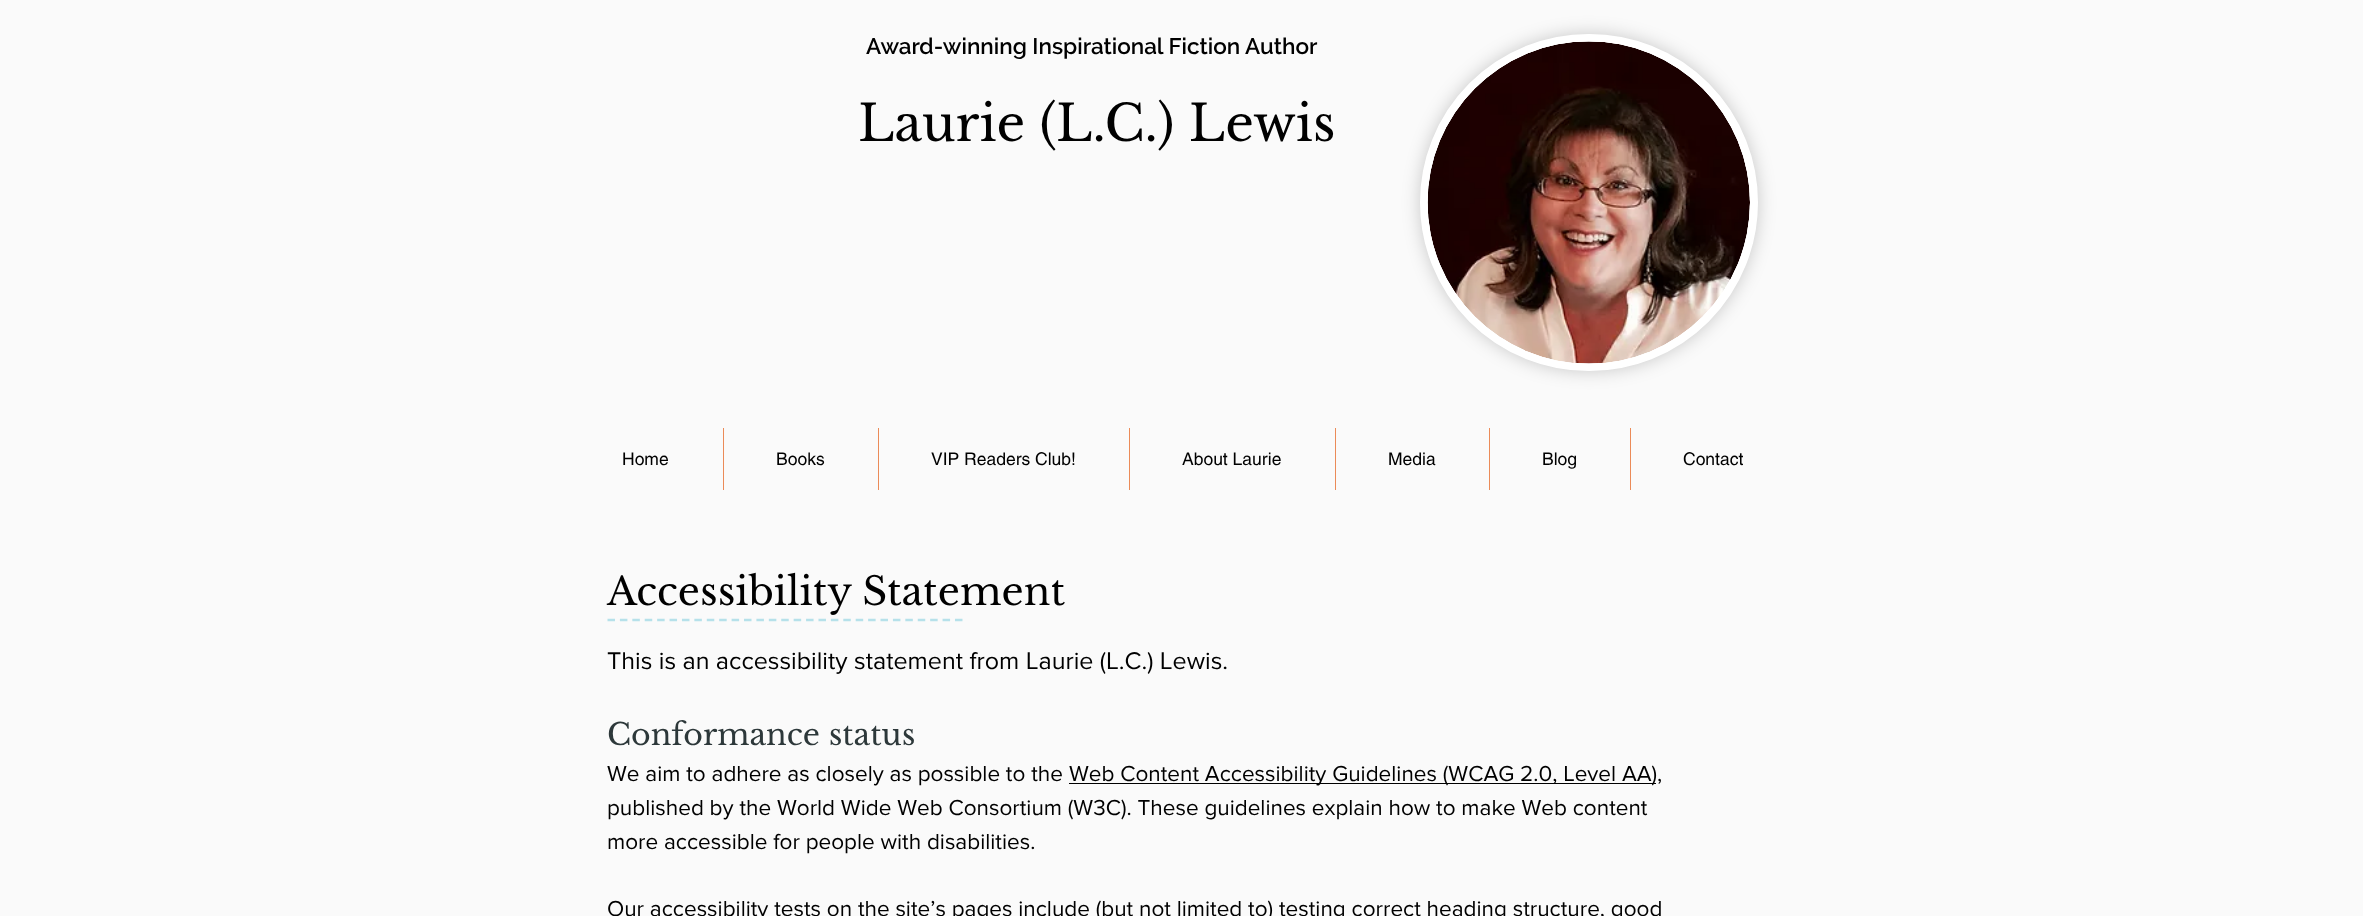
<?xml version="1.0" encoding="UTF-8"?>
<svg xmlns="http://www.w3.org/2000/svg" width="2363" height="916">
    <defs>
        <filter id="blur1" x="-50%" y="-200%" width="200%" height="500%"><feGaussianBlur stdDeviation="9"/></filter>
    </defs>
    <rect width="100%" height="100%" fill="#FAFAFA"/>
    <text x="866" y="54" font-family="Raleway" font-size="22.5" font-weight="600" fill="#000000">Award-winning Inspirational Fiction Author</text>
    <rect x="1420" y="34" width="338" height="337" rx="168.5" fill="#000000" fill-opacity="0.2" filter="url(#blur1)"/>
    <rect x="1424" y="38" width="330" height="329" rx="164.5" fill="#FFFFFF" stroke="#FFFFFF" stroke-width="8"/>
    <image x="1427" y="41" width="323" height="323" href="img_01.png"/>
    <text x="858" y="141" font-family="Libre Baskerville" font-size="50" fill="#000000">Laurie (L.C.) Lewis</text>
    <text x="622" y="465" font-family="helvetica" font-size="17.5" fill="#000000">Home</text>
    <rect x="723" y="428" width="1" height="62" fill="#EB8B58"/>
    <text x="776" y="465" font-family="helvetica" font-size="17.5" fill="#000000">Books</text>
    <rect x="878" y="428" width="1" height="62" fill="#EB8B58"/>
    <text x="931" y="465" font-family="helvetica" font-size="17.5" fill="#000000">VIP Readers Club!</text>
    <rect x="1129" y="428" width="1" height="62" fill="#EB8B58"/>
    <text x="1182" y="465" font-family="helvetica" font-size="17.5" fill="#000000">About Laurie</text>
    <rect x="1335" y="428" width="1" height="62" fill="#EB8B58"/>
    <text x="1388" y="465" font-family="helvetica" font-size="17.5" fill="#000000">Media</text>
    <rect x="1489" y="428" width="1" height="62" fill="#EB8B58"/>
    <text x="1542" y="465" font-family="helvetica" font-size="17.5" fill="#000000">Blog</text>
    <rect x="1630" y="428" width="1" height="62" fill="#EB8B58"/>
    <text x="1683" y="465" font-family="helvetica" font-size="17.5" fill="#000000">Contact</text>
    <text x="607" y="605" font-family="Libre Baskerville" font-size="38.75" fill="#000000">Accessibility Statement</text>
    <path d="M 607.5 620 H 962.5" fill="none" stroke="#B6E1EA" stroke-width="2.5" stroke-dasharray="7.5 4.91"/>
    <text x="607" y="669" font-family="'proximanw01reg'" font-size="25" fill="#000000">This is an accessibility statement from Laurie (L.C.) Lewis.</text>
    <text x="607" y="745" font-family="Libre Baskerville" font-size="30" fill="#2D383A">Conformance status</text>
    <text x="607" y="781" font-family="'proximanw01reg'" font-size="22.5" fill="#000000">We aim to adhere as closely as possible to the</text>
    <rect x="1069" y="783" width="587" height="1" fill="#000000"/>
    <text x="1069" y="781" font-family="'proximanw01reg'" font-size="22.5" fill="#000000">Web Content Accessibility Guidelines (WCAG 2.0, Level AA),</text>
    <text font-family="'proximanw01reg'" font-size="22.5" fill="#000000">
        <tspan x="607" y="815">published by the World Wide Web Consortium (W3C). These guidelines explain how to make Web content</tspan>
        <tspan x="607" y="849">more accessible for people with disabilities.</tspan>
    </text>
    <text x="607" y="916" font-family="'proximanw01reg'" font-size="22.5" fill="#000000">Our accessibility tests on the site’s pages include (but not limited to) testing correct heading structure, good</text>
</svg>
